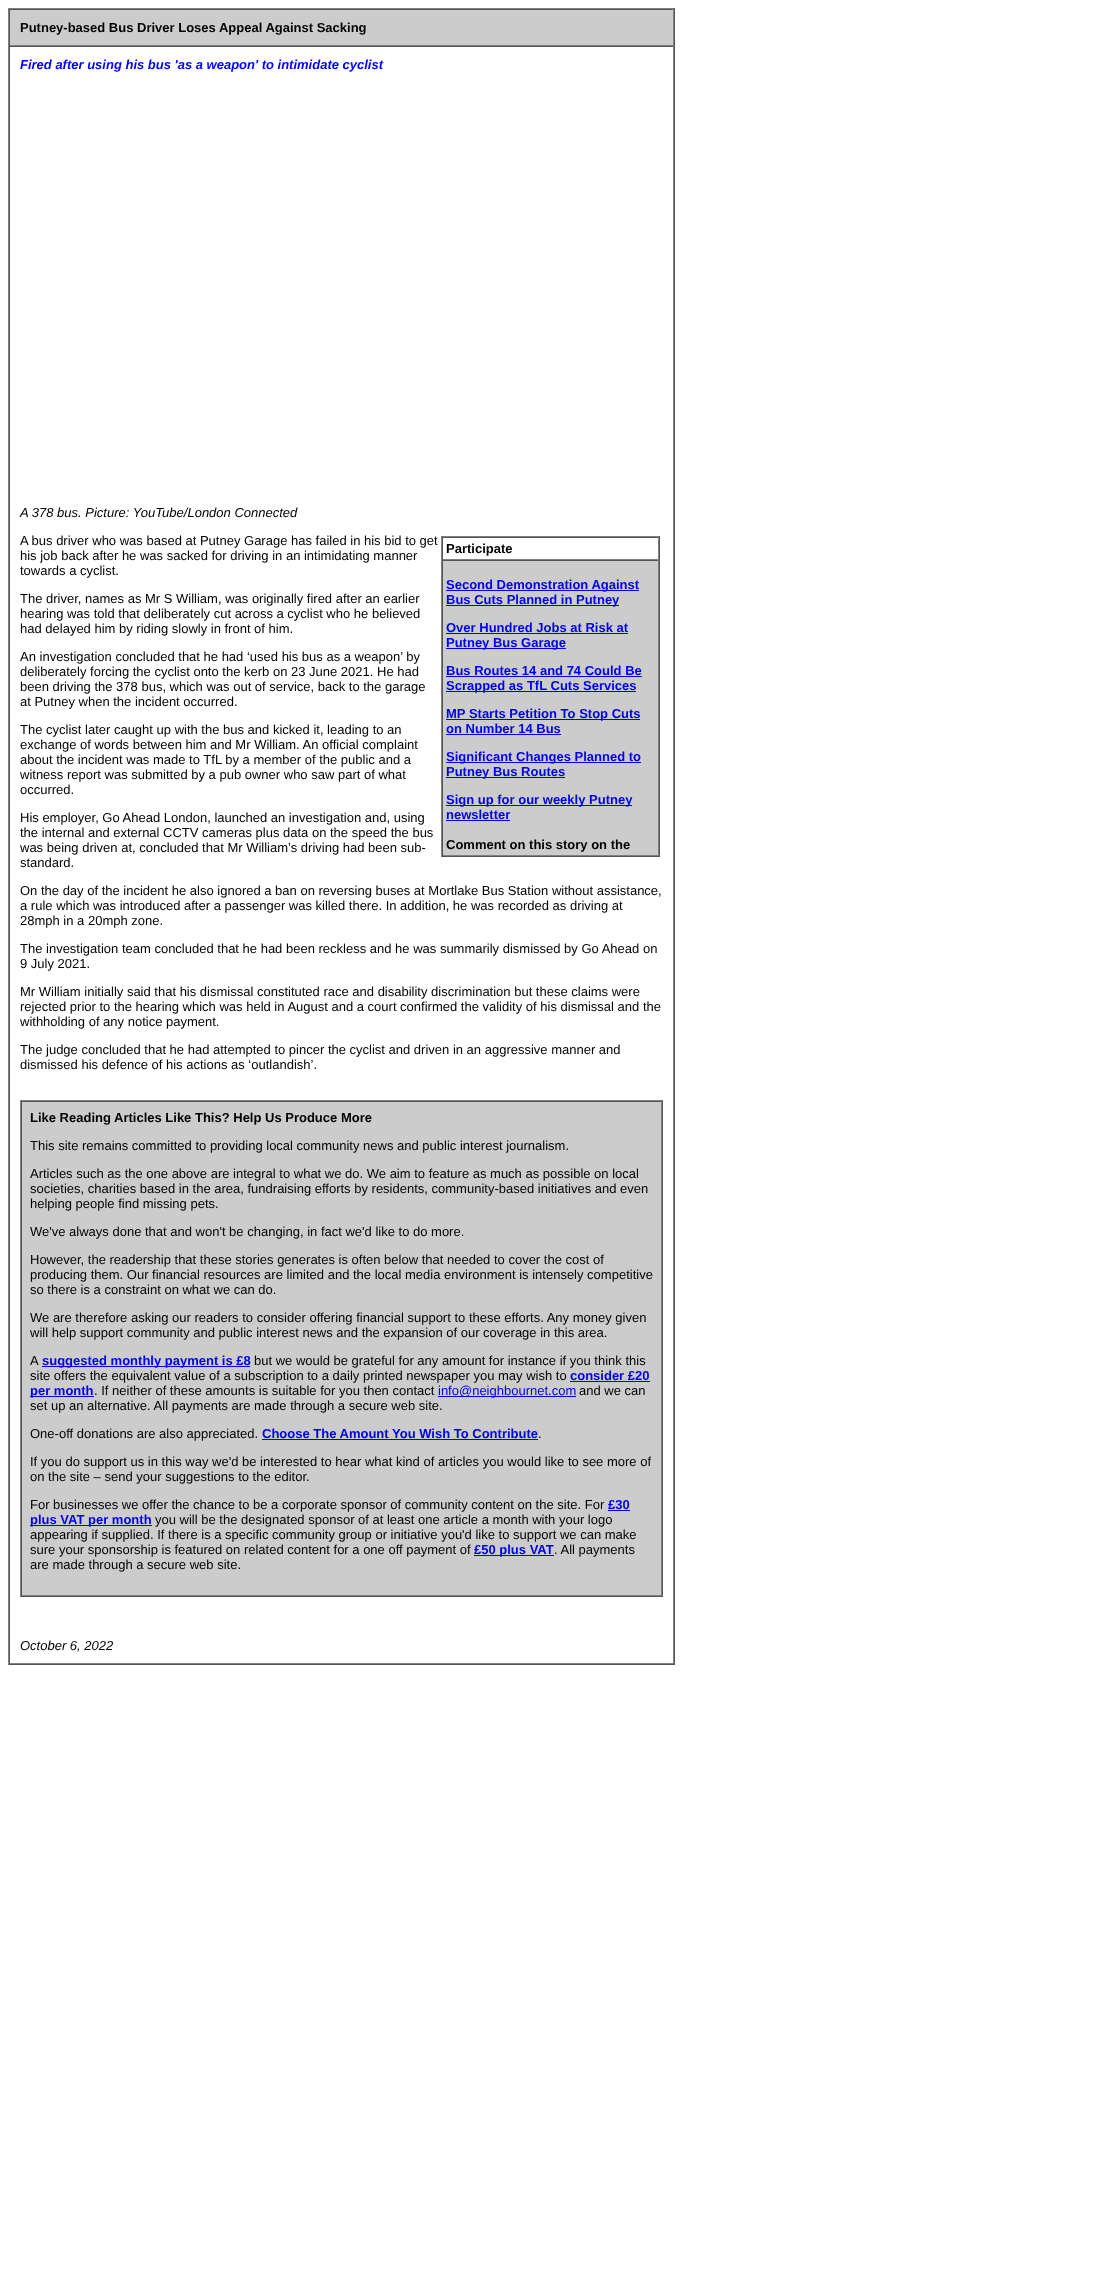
<?xml version="1.0" encoding="UTF-8"?>
<svg xmlns="http://www.w3.org/2000/svg" width="1106" height="2295">
    <rect width="100%" height="100%" fill="#FFFFFF"/>
    <rect x="8" y="8" width="667" height="1" fill="#808080"/>
    <rect x="674" y="8" width="1" height="1657" fill="#555555"/>
    <rect x="8" y="1664" width="667" height="1" fill="#555555"/>
    <rect x="8" y="8" width="1" height="1657" fill="#808080"/>
    <rect x="10" y="10" width="663" height="35" fill="#CCCCCC"/>
    <rect x="9" y="9" width="665" height="1" fill="#555555"/>
    <rect x="673" y="9" width="1" height="37" fill="#808080"/>
    <rect x="9" y="45" width="665" height="1" fill="#808080"/>
    <rect x="9" y="9" width="1" height="37" fill="#555555"/>
    <text x="20" y="32" font-family="Liberation Sans" font-size="13" font-weight="700" fill="#000000">Putney-based Bus Driver Loses Appeal Against Sacking</text>
    <rect x="9" y="46" width="665" height="1" fill="#555555"/>
    <rect x="673" y="46" width="1" height="1618" fill="#808080"/>
    <rect x="9" y="1663" width="665" height="1" fill="#808080"/>
    <rect x="9" y="46" width="1" height="1618" fill="#555555"/>
    <text x="20" y="69" font-family="Liberation Sans" font-size="13" font-weight="700" font-style="italic" fill="#0000FF">Fired after using his bus 'as a weapon' to intimidate cyclist</text>
    <text x="20" y="517" font-family="Liberation Sans" font-size="13" font-style="italic" fill="#000000">A 378 bus. Picture: YouTube/London Connected</text>
    <text font-family="Liberation Sans" font-size="13" fill="#000000">
        <tspan x="20" y="545">A bus driver who was based at Putney Garage has failed in his bid to get</tspan>
        <tspan x="20" y="560">his job back after he was sacked for driving in an intimidating manner</tspan>
        <tspan x="20" y="575">towards a cyclist.</tspan>
    </text>
    <rect x="441" y="536" width="219" height="1" fill="#808080"/>
    <rect x="659" y="536" width="1" height="321" fill="#555555"/>
    <rect x="441" y="856" width="219" height="1" fill="#555555"/>
    <rect x="441" y="536" width="1" height="321" fill="#808080"/>
    <rect x="442" y="537" width="217" height="1" fill="#555555"/>
    <rect x="658" y="537" width="1" height="23" fill="#808080"/>
    <rect x="442" y="559" width="217" height="1" fill="#808080"/>
    <rect x="442" y="537" width="1" height="23" fill="#555555"/>
    <text x="446" y="553" font-family="Liberation Sans" font-size="13" font-weight="700" fill="#000000">Participate</text>
    <rect x="443" y="561" width="215" height="294" fill="#CCCCCC"/>
    <rect x="442" y="560" width="217" height="1" fill="#555555"/>
    <rect x="658" y="560" width="1" height="296" fill="#808080"/>
    <rect x="442" y="855" width="217" height="1" fill="#808080"/>
    <rect x="442" y="560" width="1" height="296" fill="#555555"/>
    <rect x="446" y="590" width="193" height="1" fill="#0000EE"/>
    <text x="446" y="589" font-family="Liberation Sans" font-size="13" font-weight="700" fill="#0000EE">Second Demonstration Against</text>
    <rect x="446" y="605" width="173" height="1" fill="#0000EE"/>
    <text x="446" y="604" font-family="Liberation Sans" font-size="13" font-weight="700" fill="#0000EE">Bus Cuts Planned in Putney</text>
    <text x="446" y="632" font-family="Liberation Sans" font-size="13" font-weight="700" fill="#0000EE">Over Hundred Jobs at Risk at</text>
    <rect x="446" y="633" width="182" height="1" fill="#0000EE"/>
    <rect x="446" y="648" width="120" height="1" fill="#0000EE"/>
    <text x="446" y="647" font-family="Liberation Sans" font-size="13" font-weight="700" fill="#0000EE">Putney Bus Garage</text>
    <text x="446" y="675" font-family="Liberation Sans" font-size="13" font-weight="700" fill="#0000EE">Bus Routes 14 and 74 Could Be</text>
    <rect x="446" y="676" width="196" height="1" fill="#0000EE"/>
    <rect x="446" y="691" width="190" height="1" fill="#0000EE"/>
    <text x="446" y="690" font-family="Liberation Sans" font-size="13" font-weight="700" fill="#0000EE">Scrapped as TfL Cuts Services</text>
    <rect x="446" y="719" width="194" height="1" fill="#0000EE"/>
    <text font-family="Liberation Sans" font-size="13" font-weight="700" fill="#0000EE">
        <tspan x="446" y="718">MP Starts Petition To Stop Cuts</tspan>
        <tspan x="446" y="733">on Number 14 Bus</tspan>
    </text>
    <rect x="446" y="734" width="115" height="1" fill="#0000EE"/>
    <rect x="446" y="762" width="195" height="1" fill="#0000EE"/>
    <text x="446" y="761" font-family="Liberation Sans" font-size="13" font-weight="700" fill="#0000EE">Significant Changes Planned to</text>
    <rect x="446" y="777" width="119" height="1" fill="#0000EE"/>
    <text x="446" y="776" font-family="Liberation Sans" font-size="13" font-weight="700" fill="#0000EE">Putney Bus Routes</text>
    <rect x="446" y="805" width="186" height="1" fill="#0000EE"/>
    <text font-family="Liberation Sans" font-size="13" font-weight="700" fill="#0000EE">
        <tspan x="446" y="804">Sign up for our weekly Putney</tspan>
        <tspan x="446" y="819">newsletter</tspan>
    </text>
    <rect x="446" y="820" width="64" height="1" fill="#0000EE"/>
    <text x="446" y="849" font-family="Liberation Sans" font-size="13" font-weight="700" fill="#000000">Comment on this story on the</text>
    <text font-family="Liberation Sans" font-size="13" fill="#000000">
        <tspan x="20" y="603">The driver, names as Mr S William, was originally fired after an earlier</tspan>
        <tspan x="20" y="618">hearing was told that deliberately cut across a cyclist who he believed</tspan>
        <tspan x="20" y="633">had delayed him by riding slowly in front of him.</tspan>
    </text>
    <text font-family="Liberation Sans" font-size="13" fill="#000000">
        <tspan x="20" y="661">An investigation concluded that he had ‘used his bus as a weapon’ by</tspan>
        <tspan x="20" y="676">deliberately forcing the cyclist onto the kerb on 23 June 2021. He had</tspan>
        <tspan x="20" y="691">been driving the 378 bus, which was out of service, back to the garage</tspan>
        <tspan x="20" y="706">at Putney when the incident occurred.</tspan>
    </text>
    <text font-family="Liberation Sans" font-size="13" fill="#000000">
        <tspan x="20" y="734">The cyclist later caught up with the bus and kicked it, leading to an</tspan>
        <tspan x="20" y="749">exchange of words between him and Mr William. An official complaint</tspan>
        <tspan x="20" y="764">about the incident was made to TfL by a member of the public and a</tspan>
        <tspan x="20" y="779">witness report was submitted by a pub owner who saw part of what</tspan>
        <tspan x="20" y="794">occurred.</tspan>
    </text>
    <text font-family="Liberation Sans" font-size="13" fill="#000000">
        <tspan x="20" y="822">His employer, Go Ahead London, launched an investigation and, using</tspan>
        <tspan x="20" y="837">the internal and external CCTV cameras plus data on the speed the bus</tspan>
        <tspan x="20" y="852">was being driven at, concluded that Mr William’s driving had been sub-</tspan>
        <tspan x="20" y="867">standard.</tspan>
    </text>
    <text font-family="Liberation Sans" font-size="13" fill="#000000">
        <tspan x="20" y="895">On the day of the incident he also ignored a ban on reversing buses at Mortlake Bus Station without assistance,</tspan>
        <tspan x="20" y="910">a rule which was introduced after a passenger was killed there. In addition, he was recorded as driving at</tspan>
        <tspan x="20" y="925">28mph in a 20mph zone.</tspan>
    </text>
    <text font-family="Liberation Sans" font-size="13" fill="#000000">
        <tspan x="20" y="953">The investigation team concluded that he had been reckless and he was summarily dismissed by Go Ahead on</tspan>
        <tspan x="20" y="968">9 July 2021.</tspan>
    </text>
    <text font-family="Liberation Sans" font-size="13" fill="#000000">
        <tspan x="20" y="996">Mr William initially said that his dismissal constituted race and disability discrimination but these claims were</tspan>
        <tspan x="20" y="1011">rejected prior to the hearing which was held in August and a court confirmed the validity of his dismissal and the</tspan>
        <tspan x="20" y="1026">withholding of any notice payment.</tspan>
    </text>
    <text font-family="Liberation Sans" font-size="13" fill="#000000">
        <tspan x="20" y="1054">The judge concluded that he had attempted to pincer the cyclist and driven in an aggressive manner and</tspan>
        <tspan x="20" y="1069">dismissed his defence of his actions as ‘outlandish’.</tspan>
    </text>
    <rect x="20" y="1100" width="643" height="1" fill="#808080"/>
    <rect x="662" y="1100" width="1" height="497" fill="#555555"/>
    <rect x="20" y="1596" width="643" height="1" fill="#555555"/>
    <rect x="20" y="1100" width="1" height="497" fill="#808080"/>
    <rect x="22" y="1102" width="639" height="493" fill="#CCCCCC"/>
    <rect x="21" y="1101" width="641" height="1" fill="#555555"/>
    <rect x="661" y="1101" width="1" height="495" fill="#808080"/>
    <rect x="21" y="1595" width="641" height="1" fill="#808080"/>
    <rect x="21" y="1101" width="1" height="495" fill="#555555"/>
    <text x="30" y="1122" font-family="Liberation Sans" font-size="13" font-weight="700" fill="#000000">Like Reading Articles Like This? Help Us Produce More</text>
    <text x="30" y="1150" font-family="Liberation Sans" font-size="13" fill="#000000">This site remains committed to providing local community news and public interest journalism.</text>
    <text font-family="Liberation Sans" font-size="13" fill="#000000">
        <tspan x="30" y="1178">Articles such as the one above are integral to what we do. We aim to feature as much as possible on local</tspan>
        <tspan x="30" y="1193">societies, charities based in the area, fundraising efforts by residents, community-based initiatives and even</tspan>
        <tspan x="30" y="1208">helping people find missing pets.</tspan>
    </text>
    <text x="30" y="1236" font-family="Liberation Sans" font-size="13" fill="#000000">We've always done that and won't be changing, in fact we'd like to do more.</text>
    <text font-family="Liberation Sans" font-size="13" fill="#000000">
        <tspan x="30" y="1264">However, the readership that these stories generates is often below that needed to cover the cost of</tspan>
        <tspan x="30" y="1279">producing them. Our financial resources are limited and the local media environment is intensely competitive</tspan>
        <tspan x="30" y="1294">so there is a constraint on what we can do.</tspan>
    </text>
    <text font-family="Liberation Sans" font-size="13" fill="#000000">
        <tspan x="30" y="1322">We are therefore asking our readers to consider offering financial support to these efforts. Any money given</tspan>
        <tspan x="30" y="1337">will help support community and public interest news and the expansion of our coverage in this area.</tspan>
    </text>
    <text x="30" y="1365" font-family="Liberation Sans" font-size="13" fill="#000000">A</text>
    <rect x="42" y="1366" width="208" height="1" fill="#0000EE"/>
    <text x="42" y="1365" font-family="Liberation Sans" font-size="13" font-weight="700" fill="#0000EE">suggested monthly payment is £8</text>
    <text x="254" y="1365" font-family="Liberation Sans" font-size="13" fill="#000000">but we would be grateful for any amount for instance if you think this</text>
    <text x="30" y="1380" font-family="Liberation Sans" font-size="13" fill="#000000">site offers the equivalent value of a subscription to a daily printed newspaper you may wish to</text>
    <text x="570" y="1380" font-family="Liberation Sans" font-size="13" font-weight="700" fill="#0000EE">consider £20</text>
    <rect x="570" y="1381" width="80" height="1" fill="#0000EE"/>
    <rect x="30" y="1396" width="64" height="1" fill="#0000EE"/>
    <text x="30" y="1395" font-family="Liberation Sans" font-size="13" font-weight="700" fill="#0000EE">per month</text>
    <text x="94" y="1395" font-family="Liberation Sans" font-size="13" fill="#000000">. If neither of these amounts is suitable for you then contact</text>
    <rect x="438" y="1396" width="138" height="1" fill="#0000EE"/>
    <text x="438" y="1395" font-family="Liberation Sans" font-size="13" fill="#0000EE">info@neighbournet.com</text>
    <text x="579" y="1395" font-family="Liberation Sans" font-size="13" fill="#000000">and we can</text>
    <text x="30" y="1410" font-family="Liberation Sans" font-size="13" fill="#000000">set up an alternative. All payments are made through a secure web site.</text>
    <text x="30" y="1438" font-family="Liberation Sans" font-size="13" fill="#000000">One-off donations are also appreciated.</text>
    <text x="262" y="1438" font-family="Liberation Sans" font-size="13" font-weight="700" fill="#0000EE">Choose The Amount You Wish To Contribute</text>
    <rect x="262" y="1439" width="276" height="1" fill="#0000EE"/>
    <text x="538" y="1438" font-family="Liberation Sans" font-size="13" fill="#000000">.</text>
    <text font-family="Liberation Sans" font-size="13" fill="#000000">
        <tspan x="30" y="1466">If you do support us in this way we'd be interested to hear what kind of articles you would like to see more of</tspan>
        <tspan x="30" y="1481">on the site – send your suggestions to the editor.</tspan>
    </text>
    <text x="30" y="1509" font-family="Liberation Sans" font-size="13" fill="#000000">For businesses we offer the chance to be a corporate sponsor of community content on the site. For</text>
    <text x="608" y="1509" font-family="Liberation Sans" font-size="13" font-weight="700" fill="#0000EE">£30</text>
    <rect x="608" y="1510" width="22" height="1" fill="#0000EE"/>
    <rect x="30" y="1525" width="122" height="1" fill="#0000EE"/>
    <text x="30" y="1524" font-family="Liberation Sans" font-size="13" font-weight="700" fill="#0000EE">plus VAT per month</text>
    <text x="155" y="1524" font-family="Liberation Sans" font-size="13" fill="#000000">you will be the designated sponsor of at least one article a month with your logo</text>
    <text font-family="Liberation Sans" font-size="13" fill="#000000">
        <tspan x="30" y="1539">appearing if supplied. If there is a specific community group or initiative you'd like to support we can make</tspan>
        <tspan x="30" y="1554">sure your sponsorship is featured on related content for a one off payment of</tspan>
    </text>
    <rect x="474" y="1555" width="80" height="1" fill="#0000EE"/>
    <text x="474" y="1554" font-family="Liberation Sans" font-size="13" font-weight="700" fill="#0000EE">£50 plus VAT</text>
    <text x="554" y="1554" font-family="Liberation Sans" font-size="13" fill="#000000">. All payments</text>
    <text x="30" y="1569" font-family="Liberation Sans" font-size="13" fill="#000000">are made through a secure web site.</text>
    <text x="20" y="1650" font-family="Liberation Sans" font-size="13" font-style="italic" fill="#000000">October 6, 2022</text>
</svg>
